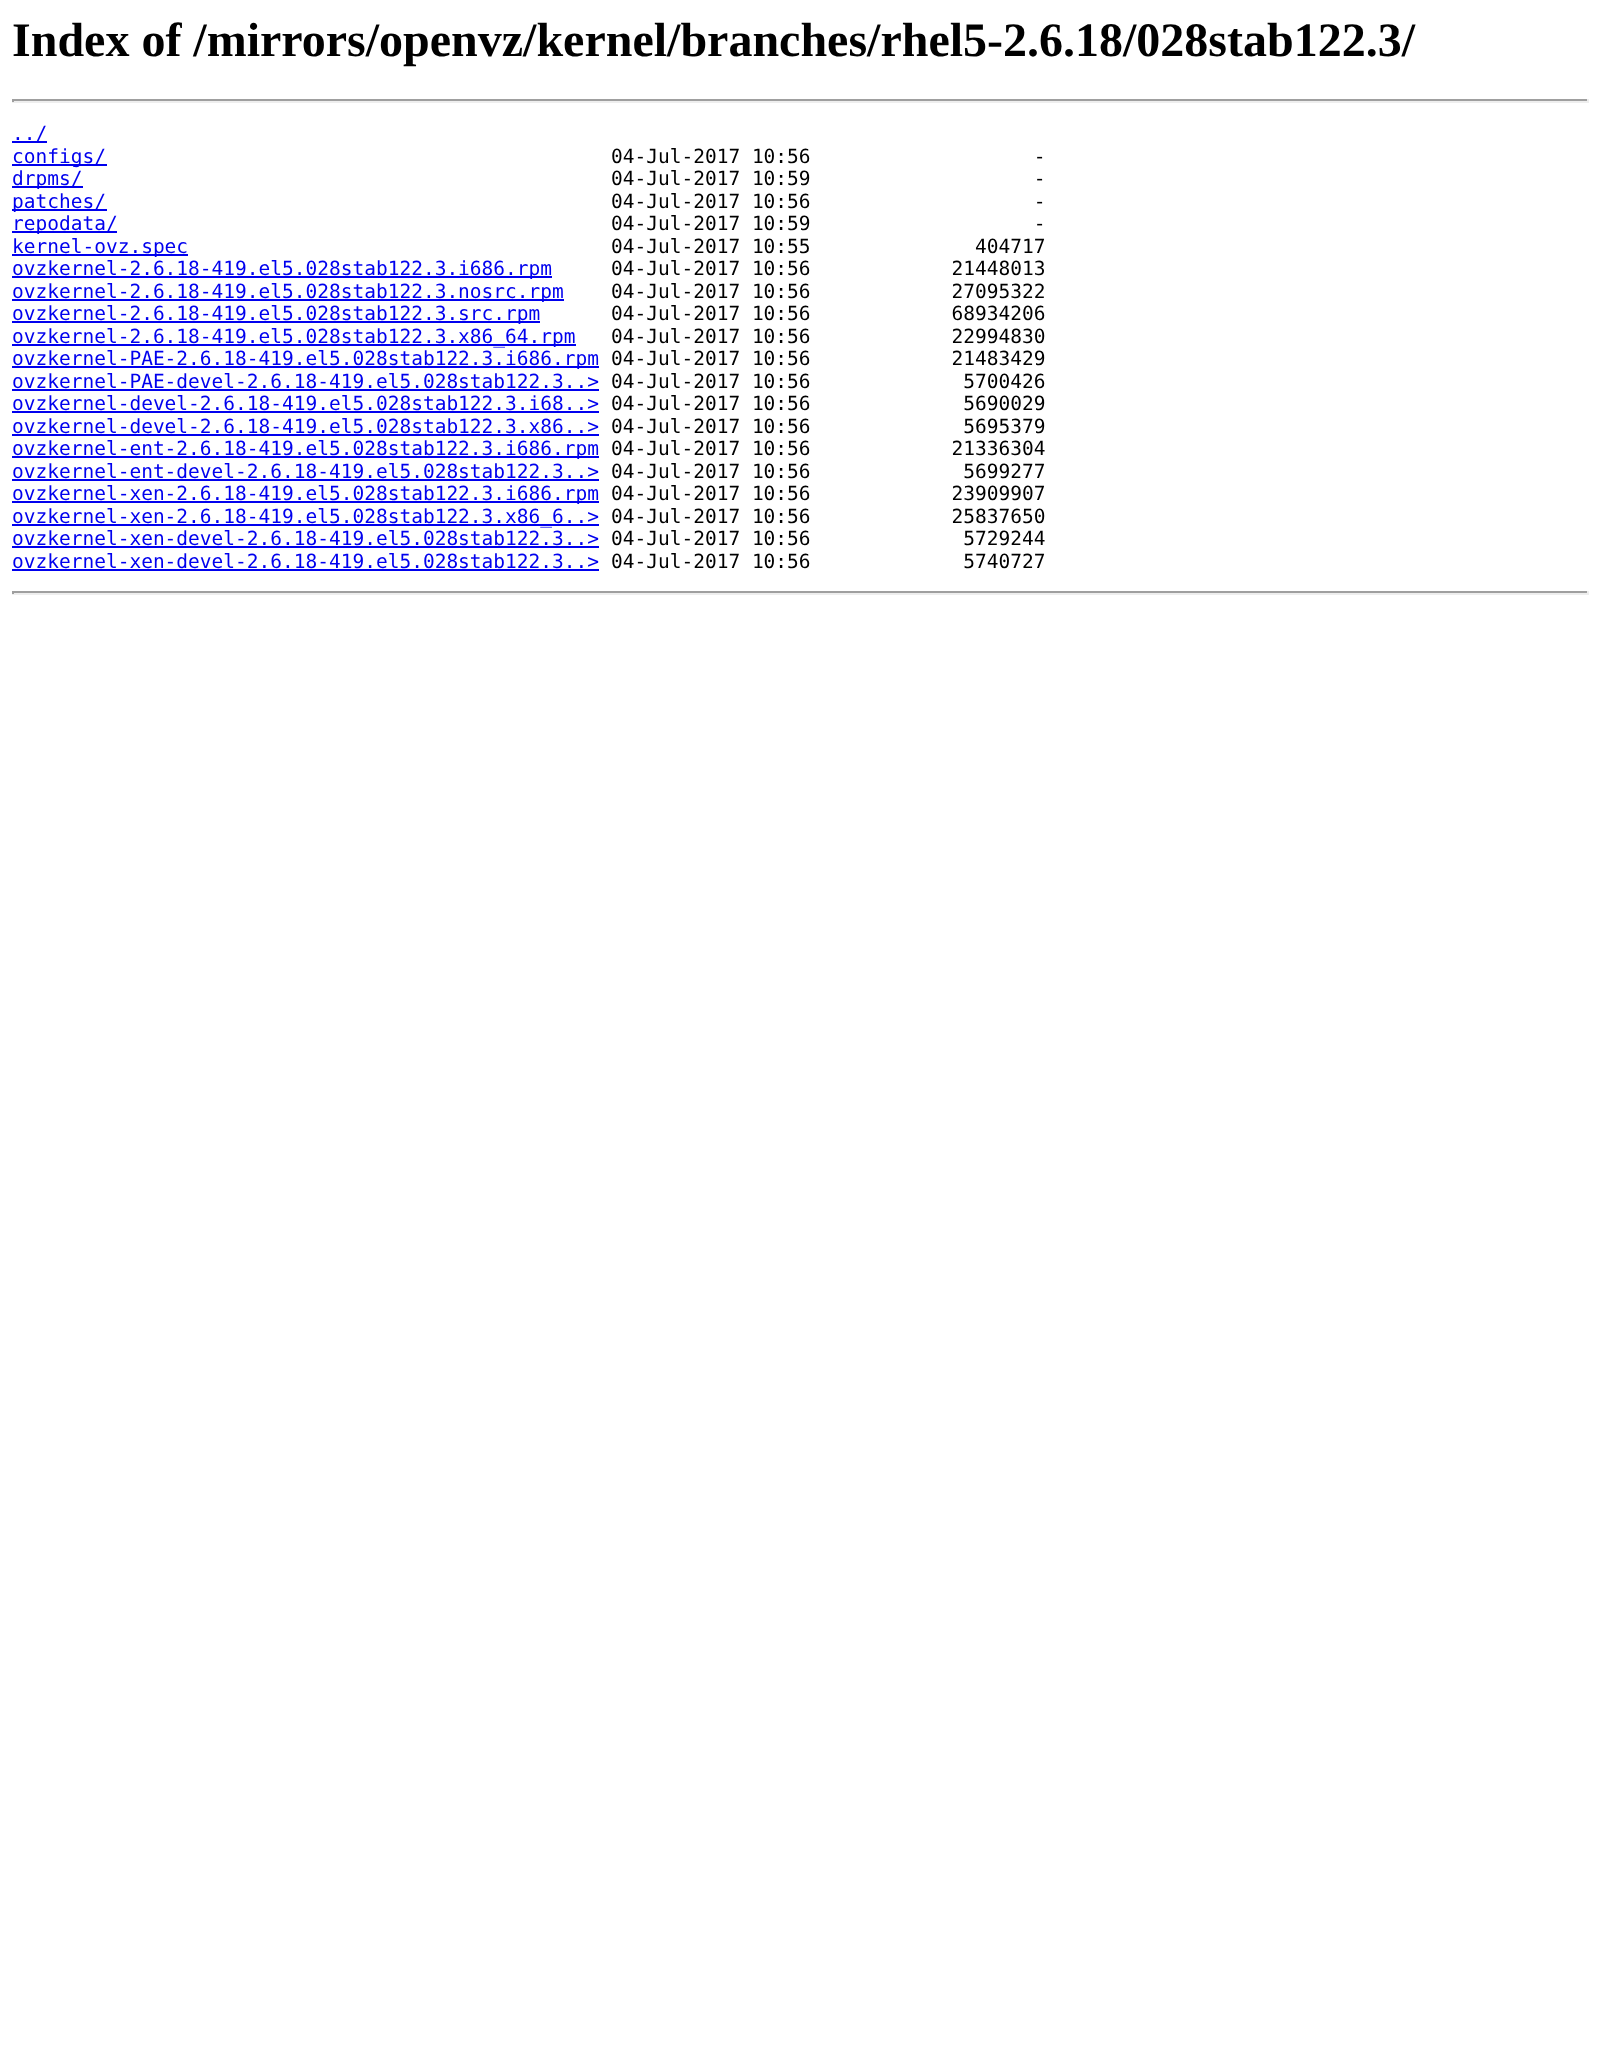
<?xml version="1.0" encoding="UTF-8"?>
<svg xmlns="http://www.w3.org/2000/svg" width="1600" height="2054">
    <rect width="100%" height="100%" fill="#FFFFFF"/>
    <text x="12" y="56" font-family="Liberation Serif" font-size="48" font-weight="700" fill="#000000">Index of /mirrors/openvz/kernel/branches/rhel5-2.6.18/028stab122.3/</text>
    <rect x="12" y="99" width="1577" height="2" fill="#9F9F9F"/>
    <rect x="1587" y="99" width="2" height="3" fill="#EEEEEE"/>
    <rect x="12" y="101" width="1577" height="2" fill="#EEEEEE"/>
    <rect x="12" y="99" width="2" height="3" fill="#9F9F9F"/>
    <rect x="12" y="141" width="35" height="2" fill="#0000EE"/>
    <text x="12" y="140" font-family="DejaVu Sans Mono" font-size="19.5" fill="#0000EE">../</text>
    <rect x="12" y="164" width="95" height="2" fill="#0000EE"/>
    <text x="12" y="163" font-family="DejaVu Sans Mono" font-size="19.5" fill="#0000EE">configs/</text>
    <text x="611" y="163" font-family="DejaVu Sans Mono" font-size="19.5" fill="#000000" xml:space="preserve">04-Jul-2017 10:56                   -</text>
    <rect x="12" y="186" width="71" height="2" fill="#0000EE"/>
    <text x="12" y="185" font-family="DejaVu Sans Mono" font-size="19.5" fill="#0000EE">drpms/</text>
    <text x="611" y="185" font-family="DejaVu Sans Mono" font-size="19.5" fill="#000000" xml:space="preserve">04-Jul-2017 10:59                   -</text>
    <rect x="12" y="209" width="95" height="2" fill="#0000EE"/>
    <text x="12" y="208" font-family="DejaVu Sans Mono" font-size="19.5" fill="#0000EE">patches/</text>
    <text x="611" y="208" font-family="DejaVu Sans Mono" font-size="19.5" fill="#000000" xml:space="preserve">04-Jul-2017 10:56                   -</text>
    <rect x="12" y="231" width="105" height="2" fill="#0000EE"/>
    <text x="12" y="230" font-family="DejaVu Sans Mono" font-size="19.5" fill="#0000EE">repodata/</text>
    <text x="611" y="230" font-family="DejaVu Sans Mono" font-size="19.5" fill="#000000" xml:space="preserve">04-Jul-2017 10:59                   -</text>
    <rect x="12" y="254" width="176" height="2" fill="#0000EE"/>
    <text x="12" y="253" font-family="DejaVu Sans Mono" font-size="19.5" fill="#0000EE">kernel-ovz.spec</text>
    <text x="611" y="253" font-family="DejaVu Sans Mono" font-size="19.5" fill="#000000" xml:space="preserve">04-Jul-2017 10:55              404717</text>
    <rect x="12" y="276" width="540" height="2" fill="#0000EE"/>
    <text x="12" y="275" font-family="DejaVu Sans Mono" font-size="19.5" fill="#0000EE">ovzkernel-2.6.18-419.el5.028stab122.3.i686.rpm</text>
    <text x="611" y="275" font-family="DejaVu Sans Mono" font-size="19.5" fill="#000000" xml:space="preserve">04-Jul-2017 10:56            21448013</text>
    <rect x="12" y="299" width="552" height="2" fill="#0000EE"/>
    <text x="12" y="298" font-family="DejaVu Sans Mono" font-size="19.5" fill="#0000EE">ovzkernel-2.6.18-419.el5.028stab122.3.nosrc.rpm</text>
    <text x="611" y="298" font-family="DejaVu Sans Mono" font-size="19.5" fill="#000000" xml:space="preserve">04-Jul-2017 10:56            27095322</text>
    <rect x="12" y="321" width="528" height="2" fill="#0000EE"/>
    <text x="12" y="320" font-family="DejaVu Sans Mono" font-size="19.5" fill="#0000EE">ovzkernel-2.6.18-419.el5.028stab122.3.src.rpm</text>
    <text x="611" y="320" font-family="DejaVu Sans Mono" font-size="19.5" fill="#000000" xml:space="preserve">04-Jul-2017 10:56            68934206</text>
    <rect x="12" y="344" width="564" height="2" fill="#0000EE"/>
    <text x="12" y="343" font-family="DejaVu Sans Mono" font-size="19.5" fill="#0000EE">ovzkernel-2.6.18-419.el5.028stab122.3.x86_64.rpm</text>
    <text x="611" y="343" font-family="DejaVu Sans Mono" font-size="19.5" fill="#000000" xml:space="preserve">04-Jul-2017 10:56            22994830</text>
    <rect x="12" y="366" width="587" height="2" fill="#0000EE"/>
    <text x="12" y="365" font-family="DejaVu Sans Mono" font-size="19.5" fill="#0000EE">ovzkernel-PAE-2.6.18-419.el5.028stab122.3.i686.rpm</text>
    <text x="611" y="365" font-family="DejaVu Sans Mono" font-size="19.5" fill="#000000" xml:space="preserve">04-Jul-2017 10:56            21483429</text>
    <text x="12" y="388" font-family="DejaVu Sans Mono" font-size="19.5" fill="#0000EE">ovzkernel-PAE-devel-2.6.18-419.el5.028stab122.3..&gt;</text>
    <rect x="12" y="389" width="587" height="2" fill="#0000EE"/>
    <text x="611" y="388" font-family="DejaVu Sans Mono" font-size="19.5" fill="#000000" xml:space="preserve">04-Jul-2017 10:56             5700426</text>
    <text x="12" y="410" font-family="DejaVu Sans Mono" font-size="19.5" fill="#0000EE">ovzkernel-devel-2.6.18-419.el5.028stab122.3.i68..&gt;</text>
    <rect x="12" y="411" width="587" height="2" fill="#0000EE"/>
    <text x="611" y="410" font-family="DejaVu Sans Mono" font-size="19.5" fill="#000000" xml:space="preserve">04-Jul-2017 10:56             5690029</text>
    <text x="12" y="433" font-family="DejaVu Sans Mono" font-size="19.5" fill="#0000EE">ovzkernel-devel-2.6.18-419.el5.028stab122.3.x86..&gt;</text>
    <rect x="12" y="434" width="587" height="2" fill="#0000EE"/>
    <text x="611" y="433" font-family="DejaVu Sans Mono" font-size="19.5" fill="#000000" xml:space="preserve">04-Jul-2017 10:56             5695379</text>
    <rect x="12" y="456" width="587" height="2" fill="#0000EE"/>
    <text x="12" y="455" font-family="DejaVu Sans Mono" font-size="19.5" fill="#0000EE">ovzkernel-ent-2.6.18-419.el5.028stab122.3.i686.rpm</text>
    <text x="611" y="455" font-family="DejaVu Sans Mono" font-size="19.5" fill="#000000" xml:space="preserve">04-Jul-2017 10:56            21336304</text>
    <text x="12" y="478" font-family="DejaVu Sans Mono" font-size="19.5" fill="#0000EE">ovzkernel-ent-devel-2.6.18-419.el5.028stab122.3..&gt;</text>
    <rect x="12" y="479" width="587" height="2" fill="#0000EE"/>
    <text x="611" y="478" font-family="DejaVu Sans Mono" font-size="19.5" fill="#000000" xml:space="preserve">04-Jul-2017 10:56             5699277</text>
    <rect x="12" y="501" width="587" height="2" fill="#0000EE"/>
    <text x="12" y="500" font-family="DejaVu Sans Mono" font-size="19.5" fill="#0000EE">ovzkernel-xen-2.6.18-419.el5.028stab122.3.i686.rpm</text>
    <text x="611" y="500" font-family="DejaVu Sans Mono" font-size="19.5" fill="#000000" xml:space="preserve">04-Jul-2017 10:56            23909907</text>
    <rect x="12" y="524" width="587" height="2" fill="#0000EE"/>
    <text x="12" y="523" font-family="DejaVu Sans Mono" font-size="19.5" fill="#0000EE">ovzkernel-xen-2.6.18-419.el5.028stab122.3.x86_6..&gt;</text>
    <text x="611" y="523" font-family="DejaVu Sans Mono" font-size="19.5" fill="#000000" xml:space="preserve">04-Jul-2017 10:56            25837650</text>
    <text x="12" y="545" font-family="DejaVu Sans Mono" font-size="19.5" fill="#0000EE">ovzkernel-xen-devel-2.6.18-419.el5.028stab122.3..&gt;</text>
    <rect x="12" y="546" width="587" height="2" fill="#0000EE"/>
    <text x="611" y="545" font-family="DejaVu Sans Mono" font-size="19.5" fill="#000000" xml:space="preserve">04-Jul-2017 10:56             5729244</text>
    <text x="12" y="568" font-family="DejaVu Sans Mono" font-size="19.5" fill="#0000EE">ovzkernel-xen-devel-2.6.18-419.el5.028stab122.3..&gt;</text>
    <rect x="12" y="569" width="587" height="2" fill="#0000EE"/>
    <text x="611" y="568" font-family="DejaVu Sans Mono" font-size="19.5" fill="#000000" xml:space="preserve">04-Jul-2017 10:56             5740727</text>
    <rect x="12" y="591" width="1577" height="2" fill="#9F9F9F"/>
    <rect x="1587" y="591" width="2" height="3" fill="#EEEEEE"/>
    <rect x="12" y="593" width="1577" height="2" fill="#EEEEEE"/>
    <rect x="12" y="591" width="2" height="3" fill="#9F9F9F"/>
</svg>
